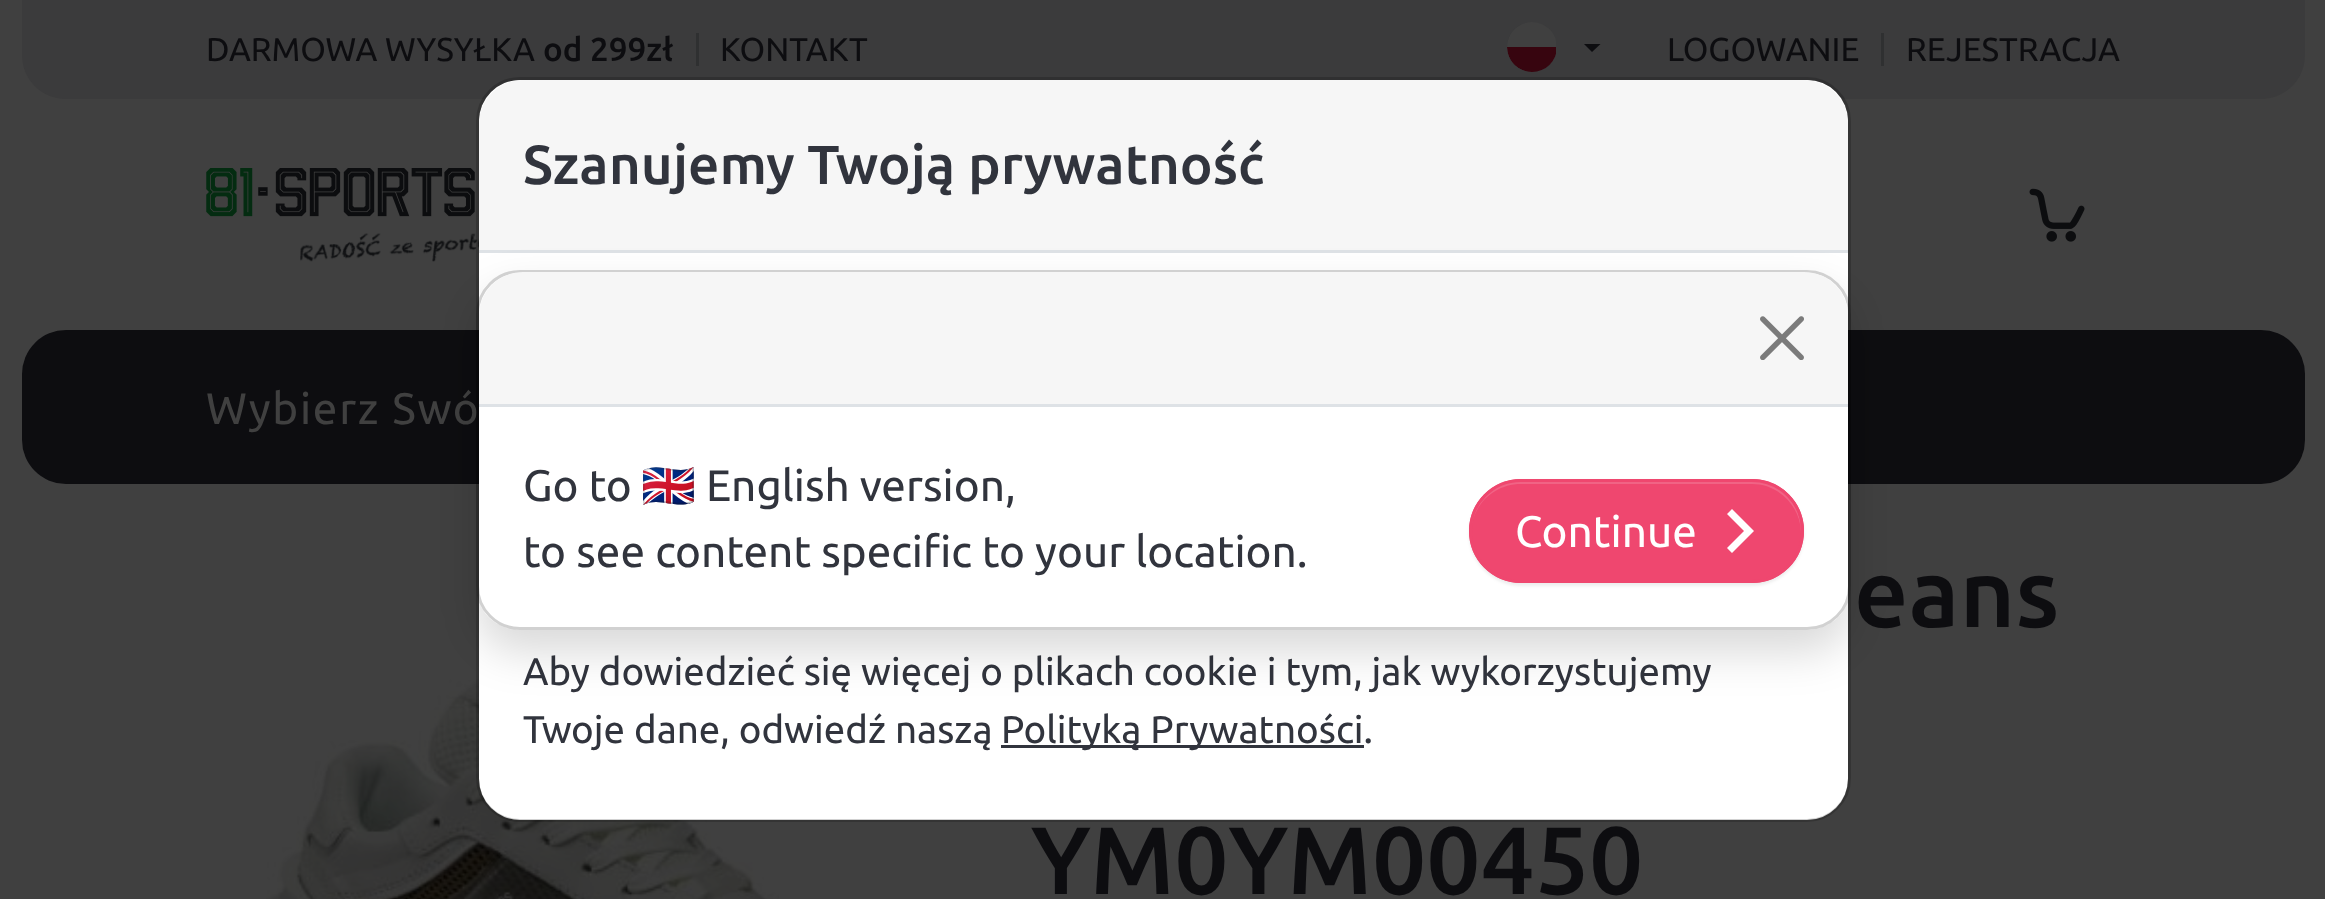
<?xml version="1.0" encoding="UTF-8"?>
<svg xmlns="http://www.w3.org/2000/svg" width="2325" height="899">
    <defs>
        <clipPath id="clip1"><rect x="1507" y="22" width="50" height="50" rx="25"/></clipPath>
        <clipPath id="clip2"><rect x="479" y="80" width="1369" height="740" rx="41"/></clipPath>
        <clipPath id="clip3"><path d="M 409 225 H 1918 V 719 H 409 Z M 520 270 H 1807 C 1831.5 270 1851 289.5 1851 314 V 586 C 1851 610.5 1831.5 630 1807 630 H 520 C 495.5 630 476 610.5 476 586 V 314 C 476 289.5 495.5 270 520 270 Z" clip-rule="evenodd"/></clipPath>
        <filter id="blur1" x="-50%" y="-200%" width="200%" height="500%"><feGaussianBlur stdDeviation="22"/></filter>
        <filter id="blur2" x="-50%" y="-200%" width="200%" height="500%"><feGaussianBlur stdDeviation="1.5"/></filter>
    </defs>
    <rect width="100%" height="100%" fill="#404040"/>
    <path d="M 22 0 H 2305 V 55 C 2305 79.5 2285.5 99 2261 99 H 66 C 41.5 99 22 79.5 22 55 Z" fill="#3B3B3C"/>
    <text x="206" y="61" font-family="Ubuntu" font-size="33" fill="#0D0D10">DARMOWA WYSYŁKA</text>
    <text x="543" y="61" font-family="Ubuntu" font-size="33" font-weight="500" fill="#0D0D10">od 299zł</text>
    <rect x="696" y="33" width="3" height="33" fill="#2F3031"/>
    <text x="720" y="61" font-family="Ubuntu" font-size="33" fill="#0D0D10">KONTAKT</text>
    <g clip-path="url(#clip1)">
        <path d="M 1532 22 H 1556 V 72 H 1532 C 1518 72 1507 61 1507 47 C 1507 33 1518 22 1532 22 Z" fill="#404040"/>
    </g>
    <path d="M 1584 44 H 1600.5 L 1592 52 Z" fill="#0D0D10"/>
    <g clip-path="url(#clip1)">
        <path d="M 1507 47 H 1556 V 72 H 1532 C 1518 72 1507 61 1507 47 Z" fill="#37050F"/>
    </g>
    <text x="1667" y="61" font-family="Ubuntu" font-size="33" fill="#0D0D10">LOGOWANIE</text>
    <rect x="1881" y="33" width="3" height="33" fill="#2F3031"/>
    <text x="1906" y="61" font-family="Ubuntu" font-size="33" fill="#0D0D10">REJESTRACJA</text>
    <image x="206" y="168" width="269" height="49" href="img_01.png"/>
    <image x="300" y="233" width="179" height="29" href="img_02.png"/>
    <image x="2029" y="188" width="56" height="54" href="img_03.png"/>
    <rect x="22" y="330" width="2283" height="154" rx="44" fill="#0D0D10"/>
    <text x="206" y="424" font-family="Ubuntu" font-size="44" letter-spacing="1.75" fill="#404040">Wybierz Swó</text>
    <image x="266" y="675" width="513" height="224" href="img_05.png"/>
    <rect x="479" y="80" width="1369" height="740" rx="41" fill="#FFFFFF"/>
    <rect x="477.5" y="78.5" width="1372" height="742" rx="42.5" fill="none" stroke="#000000" stroke-opacity="0.18" stroke-width="3"/>
    <g clip-path="url(#clip2)">
        <path d="M 523 80 H 1804 C 1828.5 80 1848 99.5 1848 124 V 253 H 479 V 124 C 479 99.5 498.5 80 523 80 Z" fill="#F6F6F6"/>
    </g>
    <rect x="479" y="250" width="1369" height="3" fill="#DEE2E6"/>
    <text x="523" y="184" font-family="Ubuntu" font-size="55" font-weight="500" fill="#31343D">Szanujemy Twoją prywatność</text>
    <text font-family="Ubuntu" font-size="38.5" fill="#31343D">
        <tspan x="523" y="685">Aby dowiedzieć się więcej o plikach cookie i tym, jak wykorzystujemy</tspan>
        <tspan x="523" y="743">Twoje dane, odwiedź naszą</tspan>
    </text>
    <rect x="1001" y="745" width="363" height="3" fill="#31343D"/>
    <text x="1001" y="743" font-family="Ubuntu" font-size="38.5" fill="#31343D">Polityką Prywatności.</text>
    <g clip-path="url(#clip3)">
        <rect x="476" y="292" width="1375" height="360" rx="44" fill="#000000" fill-opacity="0.15" filter="url(#blur1)"/>
    </g>
    <rect x="477.5" y="271.5" width="1372" height="357" rx="42.5" fill="none" stroke="#000000" stroke-opacity="0.18" stroke-width="3"/>
    <path d="M 523 272 H 1804 C 1828.5 272 1848 291.5 1848 316 V 407 H 479 V 316 C 479 291.5 498.5 272 523 272 Z" fill="#F6F6F6"/>
    <rect x="479" y="404" width="1369" height="3" fill="#DEE2E6"/>
    <image x="1760" y="316" width="44" height="44" href="img_04.png"/>
    <text x="523" y="501" font-family="Ubuntu" font-size="44" fill="#31343D">Go to</text>
    <text x="641" y="501" font-family="Noto Color Emoji" font-size="44" fill="#31343D">🇬🇧</text>
    <text x="706" y="501" font-family="Ubuntu" font-size="44" fill="#31343D">English version,</text>
    <text x="523" y="567" font-family="Ubuntu" font-size="44" fill="#31343D">to see content specific to your location.</text>
    <rect x="1469" y="481" width="335" height="105" rx="52.5" fill="#000000" fill-opacity="0.07" filter="url(#blur2)"/>
    <rect x="1469" y="479" width="335" height="104" rx="52" fill="#EF476F"/>
    <path d="M 1521 484 H 1752 C 1778 484 1800 505 1801 532 V 530 C 1801 503 1779 481 1752 481 H 1520 C 1493 481 1471 503 1471 530 V 532 C 1472 505 1494 484 1521 484 Z" fill="#F16385"/>
    <rect x="1470.5" y="480.5" width="332" height="101" rx="50.5" fill="none" stroke="#EF476F" stroke-width="3"/>
    <text x="1515" y="547" font-family="Ubuntu" font-size="44" fill="#FFFFFF">Continue</text>
    <path d="M 1732 509 L 1727 514 L 1744 531 L 1727 548 L 1732 553 L 1754 531 Z" fill="#FFFFFF"/>
    <text x="1854" y="627" font-family="Ubuntu" font-size="95.5" font-weight="500" fill="#0D0D10">eans</text>
    <text x="1031" y="894" font-family="Ubuntu" font-size="95.5" font-weight="500" fill="#0D0D10">YM0YM00450</text>
</svg>
